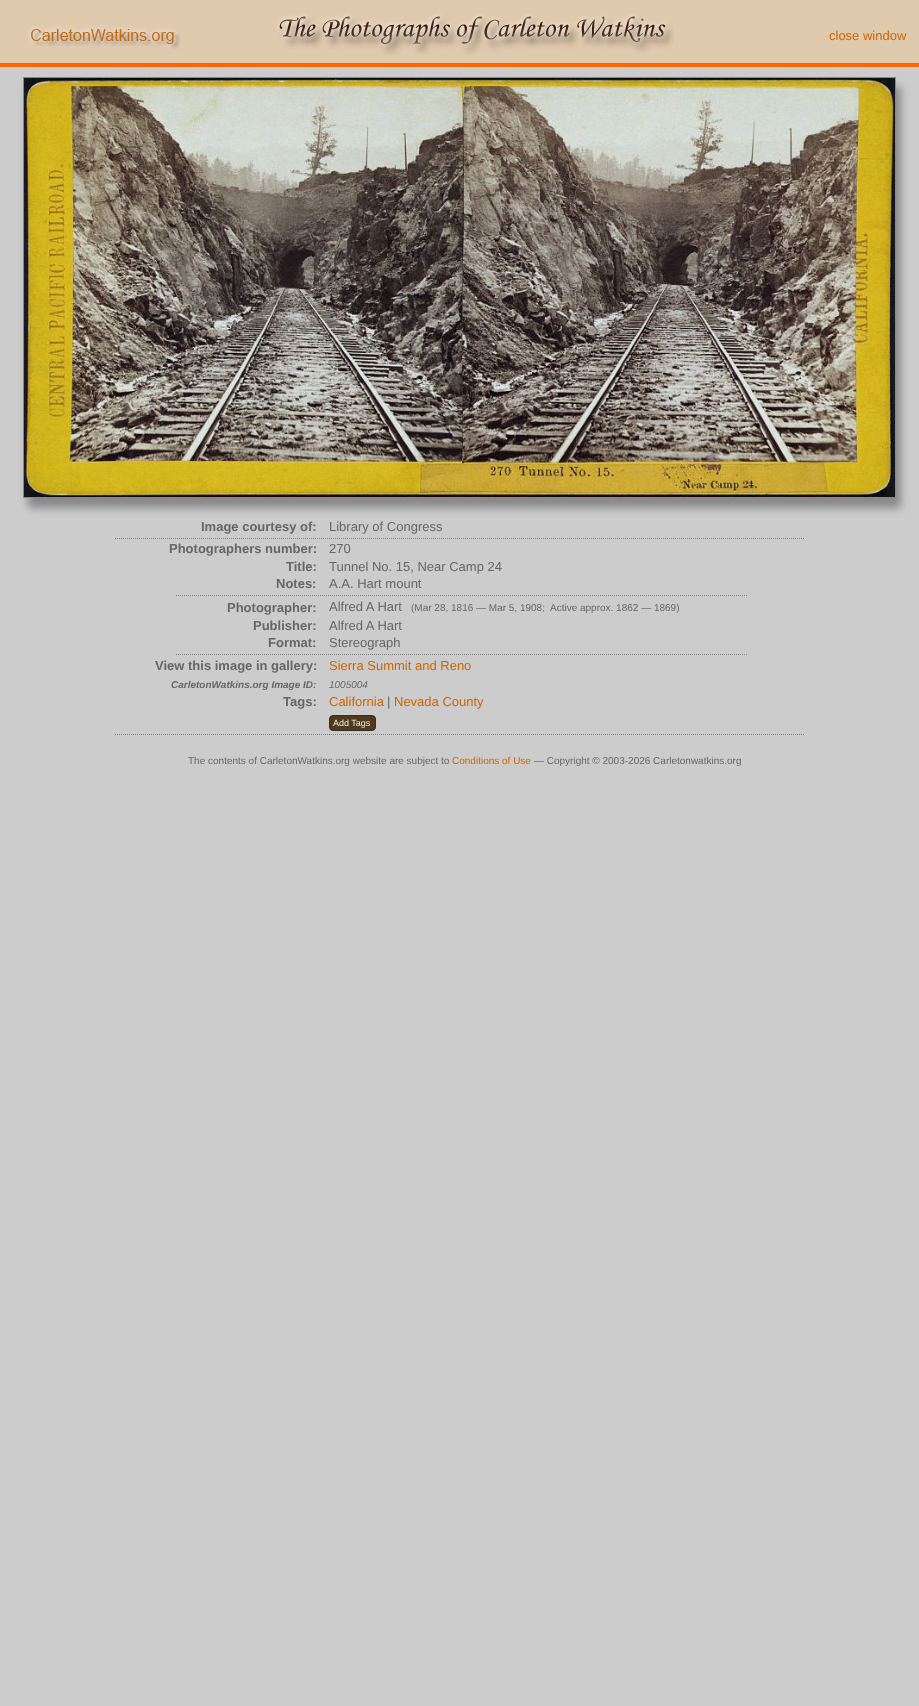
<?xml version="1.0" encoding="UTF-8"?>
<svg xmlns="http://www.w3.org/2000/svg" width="919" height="1706">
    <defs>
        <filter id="blur1" x="-50%" y="-200%" width="200%" height="500%"><feGaussianBlur stdDeviation="4"/></filter>
    </defs>
    <rect width="100%" height="100%" fill="#CCCCCC"/>
    <rect x="0" y="0" width="919" height="63" fill="#E0CAAE"/>
    <rect x="0" y="63" width="919" height="4" fill="#FF6600"/>
    <image x="27" y="25" width="153" height="25" href="img_01.png"/>
    <image x="276" y="13" width="398" height="42" href="img_02.png"/>
    <text x="829" y="40" font-family="Liberation Sans" font-size="13" fill="#CC6600">close window</text>
    <rect x="28" y="87" width="873" height="421" fill="#888888" filter="url(#blur1)"/>
    <rect x="23.5" y="77.5" width="872" height="420" fill="none" stroke="#888888"/>
    <image x="24" y="78" width="871" height="419" href="img_03.png"/>
    <text x="201" y="531" font-family="Liberation Sans" font-size="13" font-weight="700" fill="#666666">Image courtesy of:</text>
    <text x="329" y="531" font-family="Liberation Sans" font-size="13" fill="#666666">Library of Congress</text>
    <path d="M 115 538.5 H 804" fill="none" stroke="#808080" stroke-dasharray="1 1"/>
    <path d="M 115 734.5 H 804" fill="none" stroke="#808080" stroke-dasharray="1 1"/>
    <text x="169" y="553" font-family="Liberation Sans" font-size="13" font-weight="700" fill="#666666">Photographers number:</text>
    <text x="329" y="553" font-family="Liberation Sans" font-size="13" fill="#666666">270</text>
    <text x="286" y="571" font-family="Liberation Sans" font-size="13" font-weight="700" fill="#666666">Title:</text>
    <text x="329" y="571" font-family="Liberation Sans" font-size="13" fill="#666666">Tunnel No. 15, Near Camp 24</text>
    <text x="276" y="588" font-family="Liberation Sans" font-size="13" font-weight="700" fill="#666666">Notes:</text>
    <text x="329" y="588" font-family="Liberation Sans" font-size="13" fill="#666666">A.A. Hart mount</text>
    <path d="M 176 595.5 H 747" fill="none" stroke="#808080" stroke-dasharray="1 1"/>
    <text x="227" y="612" font-family="Liberation Sans" font-size="13" font-weight="700" fill="#666666">Photographer:</text>
    <text x="329" y="611" font-family="Liberation Sans" font-size="13" fill="#666666">Alfred A Hart</text>
    <text x="411" y="611" font-family="Liberation Sans" font-size="10" fill="#666666" xml:space="preserve">(Mar 28, 1816 — Mar 5, 1908;  Active approx. 1862 — 1869)</text>
    <text x="253" y="630" font-family="Liberation Sans" font-size="13" font-weight="700" fill="#666666">Publisher:</text>
    <text x="329" y="630" font-family="Liberation Sans" font-size="13" fill="#666666">Alfred A Hart</text>
    <text x="268" y="647" font-family="Liberation Sans" font-size="13" font-weight="700" fill="#666666">Format:</text>
    <text x="329" y="647" font-family="Liberation Sans" font-size="13" fill="#666666">Stereograph</text>
    <path d="M 176 654.5 H 747" fill="none" stroke="#808080" stroke-dasharray="1 1"/>
    <text x="155" y="670" font-family="Liberation Sans" font-size="13" font-weight="700" fill="#666666">View this image in gallery:</text>
    <text x="329" y="670" font-family="Liberation Sans" font-size="13" fill="#CC6600">Sierra Summit and Reno</text>
    <text x="171" y="688" font-family="Liberation Sans" font-size="10" font-weight="700" font-style="italic" fill="#666666">CarletonWatkins.org Image ID:</text>
    <text x="329" y="688" font-family="Liberation Sans" font-size="10" font-style="italic" fill="#666666">1005004</text>
    <text x="283" y="706" font-family="Liberation Sans" font-size="13" font-weight="700" fill="#666666">Tags:</text>
    <text x="329" y="706" font-family="Liberation Sans" font-size="13" fill="#CC6600">California</text>
    <text x="387" y="706" font-family="Liberation Sans" font-size="13" fill="#666666">|</text>
    <text x="394" y="706" font-family="Liberation Sans" font-size="13" fill="#CC6600">Nevada County</text>
    <rect x="329.5" y="715.5" width="46" height="15" rx="3.5" fill="#4F3A19" stroke="#333026"/>
    <text x="333" y="726" font-family="Liberation Sans" font-size="9" fill="#EDE9E5">Add Tags</text>
    <text x="188" y="764" font-family="Liberation Sans" font-size="10" fill="#666666">The contents of CarletonWatkins.org website are subject to</text>
    <text x="452" y="764" font-family="Liberation Sans" font-size="10" fill="#CC6600">Conditions of Use</text>
    <text x="534" y="764" font-family="Liberation Sans" font-size="10" fill="#666666">— Copyright © 2003-2026 Carletonwatkins.org</text>
</svg>
